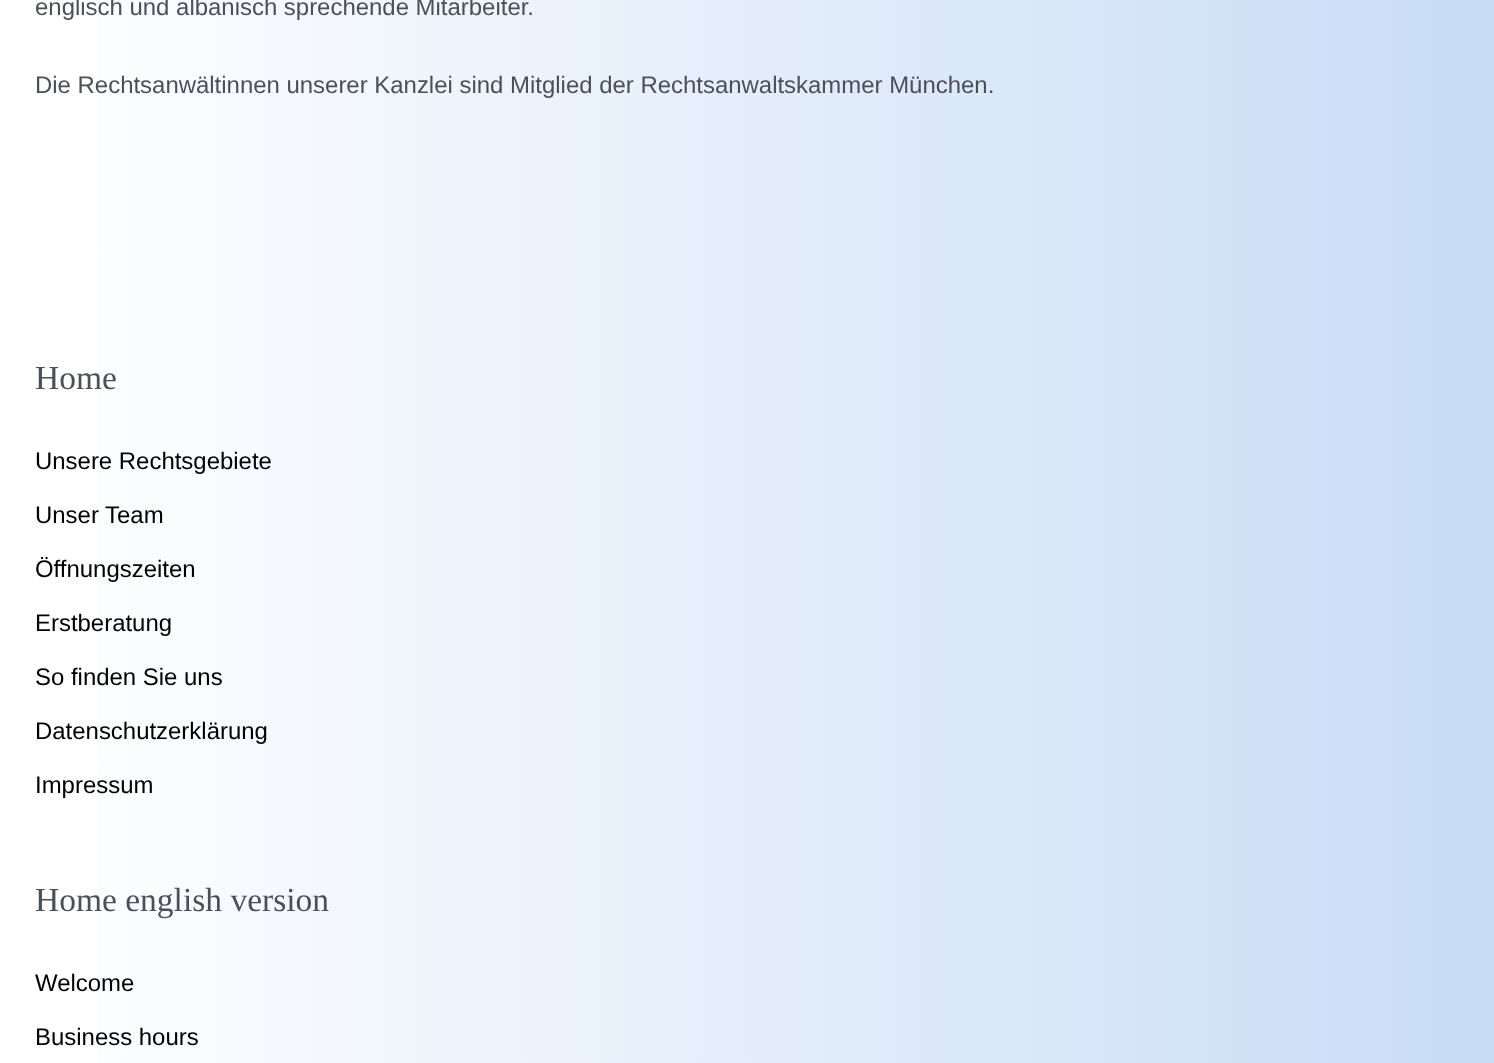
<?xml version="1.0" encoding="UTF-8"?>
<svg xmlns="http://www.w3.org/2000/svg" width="1494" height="1063">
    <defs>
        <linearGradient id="g1" gradientUnits="userSpaceOnUse" x1="0" y1="309" x2="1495" y2="309"><stop offset="0.02" stop-color="#FFFFFF"/><stop offset="1" stop-color="#C8DCF6"/></linearGradient>
    </defs>
    <rect width="100%" height="100%" fill="#FFFFFF"/>
    <rect x="97" y="0" width="1397" height="1063" fill="url(#g1)"/>
    <text x="35" y="15" font-family="Liberation Sans" font-size="23.95" fill="#4B4F58">englisch und albanisch sprechende Mitarbeiter.</text>
    <text x="35" y="93" font-family="Liberation Sans" font-size="23.95" fill="#4B4F58">Die Rechtsanwältinnen unserer Kanzlei sind Mitglied der Rechtsanwaltskammer München.</text>
    <text x="35" y="389" font-family="Liberation Serif" font-size="33.5" fill="#4B4F58">Home</text>
    <text x="35" y="469" font-family="Liberation Sans" font-size="23.95" fill="#000000">Unsere Rechtsgebiete</text>
    <text x="35" y="523" font-family="Liberation Sans" font-size="23.95" fill="#000000">Unser Team</text>
    <text x="35" y="577" font-family="Liberation Sans" font-size="23.95" fill="#000000">Öffnungszeiten</text>
    <text x="35" y="631" font-family="Liberation Sans" font-size="23.95" fill="#000000">Erstberatung</text>
    <text x="35" y="685" font-family="Liberation Sans" font-size="23.95" fill="#000000">So finden Sie uns</text>
    <text x="35" y="739" font-family="Liberation Sans" font-size="23.95" fill="#000000">Datenschutzerklärung</text>
    <text x="35" y="793" font-family="Liberation Sans" font-size="23.95" fill="#000000">Impressum</text>
    <text x="35" y="911" font-family="Liberation Serif" font-size="33.5" fill="#4B4F58">Home english version</text>
    <text x="35" y="991" font-family="Liberation Sans" font-size="23.95" fill="#000000">Welcome</text>
    <text x="35" y="1045" font-family="Liberation Sans" font-size="23.95" fill="#000000">Business hours</text>
</svg>
